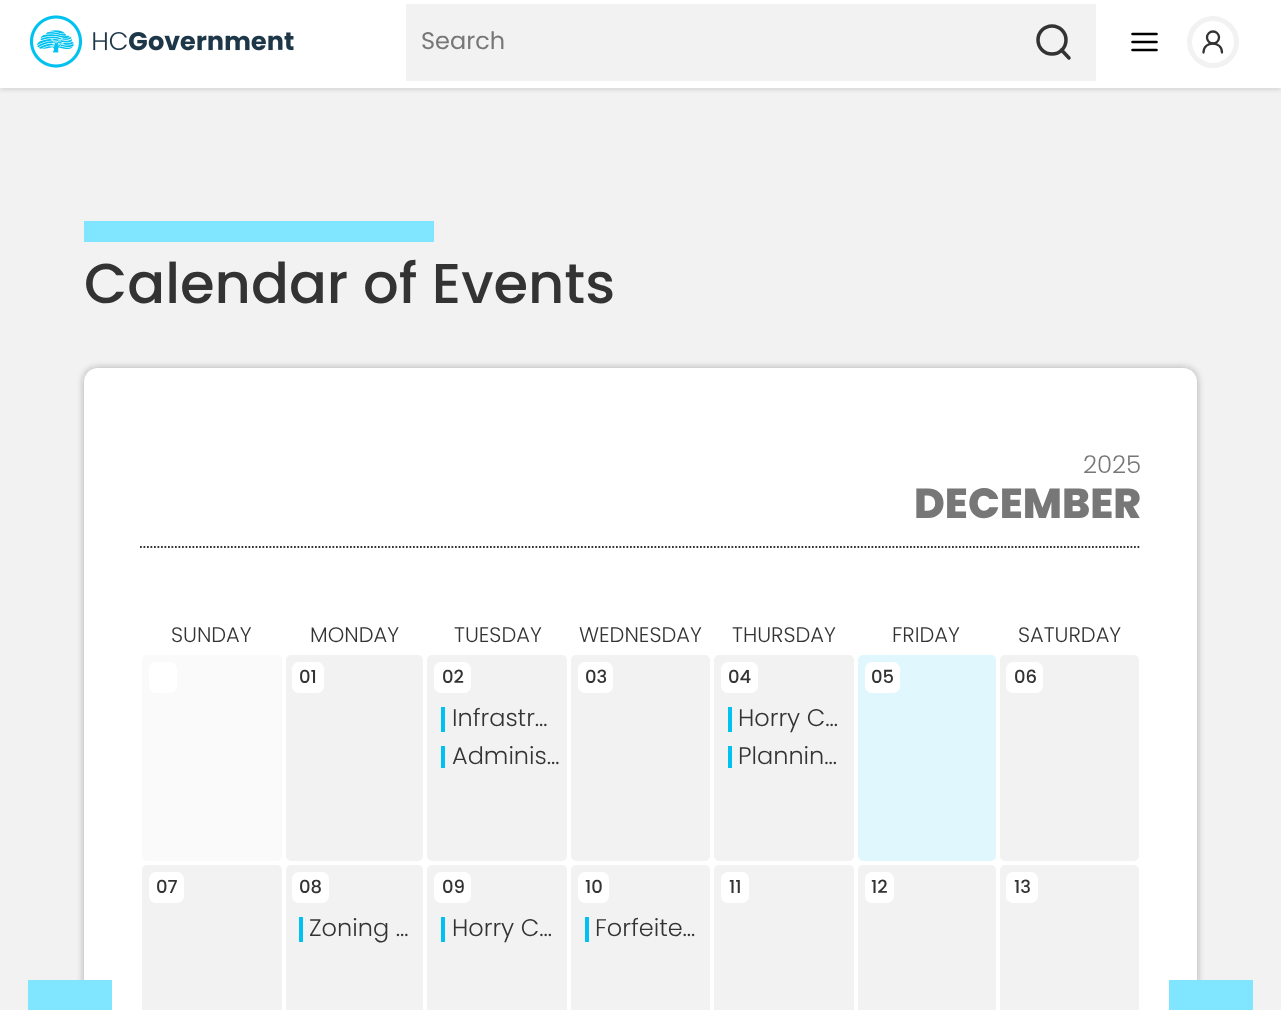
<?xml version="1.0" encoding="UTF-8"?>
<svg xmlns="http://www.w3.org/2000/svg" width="1281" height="1010">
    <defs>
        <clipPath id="clip1"><path d="M 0 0 H 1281 V 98 H 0 Z M 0 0 H 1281 V 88 H 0 Z" clip-rule="evenodd"/></clipPath>
        <filter id="blur1" x="-50%" y="-200%" width="200%" height="500%"><feGaussianBlur stdDeviation="2.5"/></filter>
        <filter id="blur2" x="-50%" y="-200%" width="200%" height="500%"><feGaussianBlur stdDeviation="3.5"/></filter>
    </defs>
    <rect width="100%" height="100%" fill="#F2F2F2"/>
    <g clip-path="url(#clip1)">
        <rect x="0" y="2" width="1281" height="87" fill="#232323" fill-opacity="0.18" filter="url(#blur1)"/>
    </g>
    <rect x="0" y="0" width="1281" height="88" fill="#FFFFFF" fill-opacity="0.95"/>
    <image x="29" y="15" width="265" height="53" href="img_01.png"/>
    <rect x="406" y="4" width="690" height="77" fill="#F2F2F2"/>
    <text x="421" y="49" font-family="Poppins" font-size="24" fill="#777777">Search</text>
    <circle cx="1052" cy="40" r="14" fill="none" stroke="#333333" stroke-width="3.5"/>
    <path d="M 1069 58 L 1061.5 50" fill="none" stroke="#333333" stroke-width="3.5" stroke-linecap="round" stroke-linejoin="round"/>
    <path d="M 1132.5 42 H 1156.5 M 1132.5 34 H 1156.5 M 1132.5 50 H 1156.5" fill="none" stroke="#000000" stroke-width="2.6" stroke-linecap="round" stroke-linejoin="round"/>
    <circle cx="1213" cy="42" r="23.5" fill="none" stroke="#F2F2F2" stroke-width="5"/>
    <circle cx="1213" cy="37.5" r="6" fill="none" stroke="#333333" stroke-width="2.3"/>
    <path d="M 1222 52.5 C 1222 40.5 1203.5 40.5 1203.5 52.5" fill="none" stroke="#333333" stroke-width="2.3" stroke-linecap="round" stroke-linejoin="round"/>
    <rect x="84" y="221" width="350" height="21" fill="#80E6FF"/>
    <text x="84" y="303" font-family="Poppins" font-size="56" font-weight="500" fill="#333333">Calendar of Events</text>
    <rect x="84" y="368" width="1113" height="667" rx="14" fill="#232323" fill-opacity="0.36" filter="url(#blur2)"/>
    <rect x="84" y="368" width="1113" height="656" rx="14" fill="#FFFFFF"/>
    <path d="M 140 547 H 1141" fill="none" stroke="#333333" stroke-width="1.8" stroke-dasharray="1.75 1.75"/>
    <text x="1083" y="473" font-family="Poppins" font-size="24.5" font-weight="300" fill="#777777">2025</text>
    <text x="914" y="518" font-family="Poppins" font-size="42" font-weight="800" fill="#777777">DECEMBER</text>
    <rect x="28" y="980" width="84" height="30" fill="#80E6FF"/>
    <rect x="1169" y="980" width="84" height="30" fill="#80E6FF"/>
    <text x="171" y="642" font-family="Poppins" font-size="21" font-weight="300" fill="#333333">SUNDAY</text>
    <text x="310" y="642" font-family="Poppins" font-size="21" font-weight="300" fill="#333333">MONDAY</text>
    <text x="454" y="642" font-family="Poppins" font-size="21" font-weight="300" fill="#333333">TUESDAY</text>
    <text x="579" y="642" font-family="Poppins" font-size="21" font-weight="300" fill="#333333">WEDNESDAY</text>
    <text x="732" y="642" font-family="Poppins" font-size="21" font-weight="300" fill="#333333">THURSDAY</text>
    <text x="892" y="642" font-family="Poppins" font-size="21" font-weight="300" fill="#333333">FRIDAY</text>
    <text x="1018" y="642" font-family="Poppins" font-size="21" font-weight="300" fill="#333333">SATURDAY</text>
    <rect x="141" y="654" width="142" height="208" rx="6" fill="#FAFAFA" stroke="#FFFFFF" stroke-width="2"/>
    <rect x="149" y="662" width="28" height="31" rx="7" fill="#FFFFFF"/>
    <rect x="285" y="654" width="139" height="208" rx="6" fill="#F2F2F2" stroke="#FFFFFF" stroke-width="2"/>
    <rect x="292" y="662" width="32" height="31" rx="7" fill="#FFFFFF"/>
    <text x="299" y="683" font-family="Poppins" font-size="18" font-weight="500" fill="#333333">01</text>
    <rect x="426" y="654" width="142" height="208" rx="6" fill="#F2F2F2" stroke="#FFFFFF" stroke-width="2"/>
    <rect x="434" y="662" width="37" height="31" rx="7" fill="#FFFFFF"/>
    <text x="442" y="683" font-family="Poppins" font-size="18" font-weight="500" fill="#333333">02</text>
    <rect x="441" y="707" width="4" height="25" fill="#00C1F0"/>
    <text x="452" y="726" font-family="Poppins" font-size="24" font-weight="300" fill="#333333">Infrastr…</text>
    <rect x="441" y="746" width="4" height="22" fill="#00C1F0"/>
    <text x="452" y="764" font-family="Poppins" font-size="24" font-weight="300" fill="#333333">Adminis…</text>
    <rect x="570" y="654" width="141" height="208" rx="6" fill="#F2F2F2" stroke="#FFFFFF" stroke-width="2"/>
    <rect x="578" y="662" width="35" height="31" rx="7" fill="#FFFFFF"/>
    <text x="585" y="683" font-family="Poppins" font-size="18" font-weight="500" fill="#333333">03</text>
    <rect x="713" y="654" width="142" height="208" rx="6" fill="#F2F2F2" stroke="#FFFFFF" stroke-width="2"/>
    <rect x="721" y="662" width="37" height="31" rx="7" fill="#FFFFFF"/>
    <text x="728" y="683" font-family="Poppins" font-size="18" font-weight="500" fill="#333333">04</text>
    <rect x="728" y="707" width="4" height="25" fill="#00C1F0"/>
    <text x="738" y="726" font-family="Poppins" font-size="24" font-weight="300" fill="#333333">Horry C…</text>
    <rect x="728" y="746" width="4" height="22" fill="#00C1F0"/>
    <text x="738" y="764" font-family="Poppins" font-size="24" font-weight="300" fill="#333333">Plannin…</text>
    <rect x="857" y="654" width="140" height="208" rx="6" fill="#E0F8FD" stroke="#FFFFFF" stroke-width="2"/>
    <rect x="865" y="662" width="35" height="31" rx="7" fill="#FFFFFF"/>
    <text x="871" y="683" font-family="Poppins" font-size="18" font-weight="500" fill="#333333">05</text>
    <rect x="999" y="654" width="141" height="208" rx="6" fill="#F2F2F2" stroke="#FFFFFF" stroke-width="2"/>
    <rect x="1006" y="662" width="37" height="31" rx="7" fill="#FFFFFF"/>
    <text x="1014" y="683" font-family="Poppins" font-size="18" font-weight="500" fill="#333333">06</text>
    <rect x="141" y="864" width="142" height="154" rx="6" fill="#F2F2F2" stroke="#FFFFFF" stroke-width="2"/>
    <rect x="149" y="872" width="35" height="31" rx="7" fill="#FFFFFF"/>
    <text x="156" y="893" font-family="Poppins" font-size="18" font-weight="500" fill="#333333">07</text>
    <rect x="285" y="864" width="139" height="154" rx="6" fill="#F2F2F2" stroke="#FFFFFF" stroke-width="2"/>
    <rect x="292" y="872" width="37" height="31" rx="7" fill="#FFFFFF"/>
    <text x="299" y="893" font-family="Poppins" font-size="18" font-weight="500" fill="#333333">08</text>
    <rect x="299" y="917" width="4" height="25" fill="#00C1F0"/>
    <text x="309" y="936" font-family="Poppins" font-size="24" font-weight="300" fill="#333333">Zoning …</text>
    <rect x="426" y="864" width="142" height="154" rx="6" fill="#F2F2F2" stroke="#FFFFFF" stroke-width="2"/>
    <rect x="434" y="872" width="37" height="31" rx="7" fill="#FFFFFF"/>
    <text x="442" y="893" font-family="Poppins" font-size="18" font-weight="500" fill="#333333">09</text>
    <rect x="441" y="917" width="4" height="25" fill="#00C1F0"/>
    <text x="452" y="936" font-family="Poppins" font-size="24" font-weight="300" fill="#333333">Horry C…</text>
    <rect x="570" y="864" width="141" height="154" rx="6" fill="#F2F2F2" stroke="#FFFFFF" stroke-width="2"/>
    <rect x="578" y="872" width="31" height="31" rx="7" fill="#FFFFFF"/>
    <text x="585" y="893" font-family="Poppins" font-size="18" font-weight="500" fill="#333333">10</text>
    <rect x="585" y="917" width="4" height="25" fill="#00C1F0"/>
    <text x="595" y="936" font-family="Poppins" font-size="24" font-weight="300" fill="#333333">Forfeite…</text>
    <rect x="713" y="864" width="142" height="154" rx="6" fill="#F2F2F2" stroke="#FFFFFF" stroke-width="2"/>
    <rect x="721" y="872" width="28" height="31" rx="7" fill="#FFFFFF"/>
    <text x="729" y="893" font-family="Poppins" font-size="18" font-weight="500" fill="#333333">11</text>
    <rect x="857" y="864" width="140" height="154" rx="6" fill="#F2F2F2" stroke="#FFFFFF" stroke-width="2"/>
    <rect x="865" y="872" width="29" height="31" rx="7" fill="#FFFFFF"/>
    <text x="871" y="893" font-family="Poppins" font-size="18" font-weight="500" fill="#333333">12</text>
    <rect x="999" y="864" width="141" height="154" rx="6" fill="#F2F2F2" stroke="#FFFFFF" stroke-width="2"/>
    <rect x="1006" y="872" width="32" height="31" rx="7" fill="#FFFFFF"/>
    <text x="1014" y="893" font-family="Poppins" font-size="18" font-weight="500" fill="#333333">13</text>
</svg>
